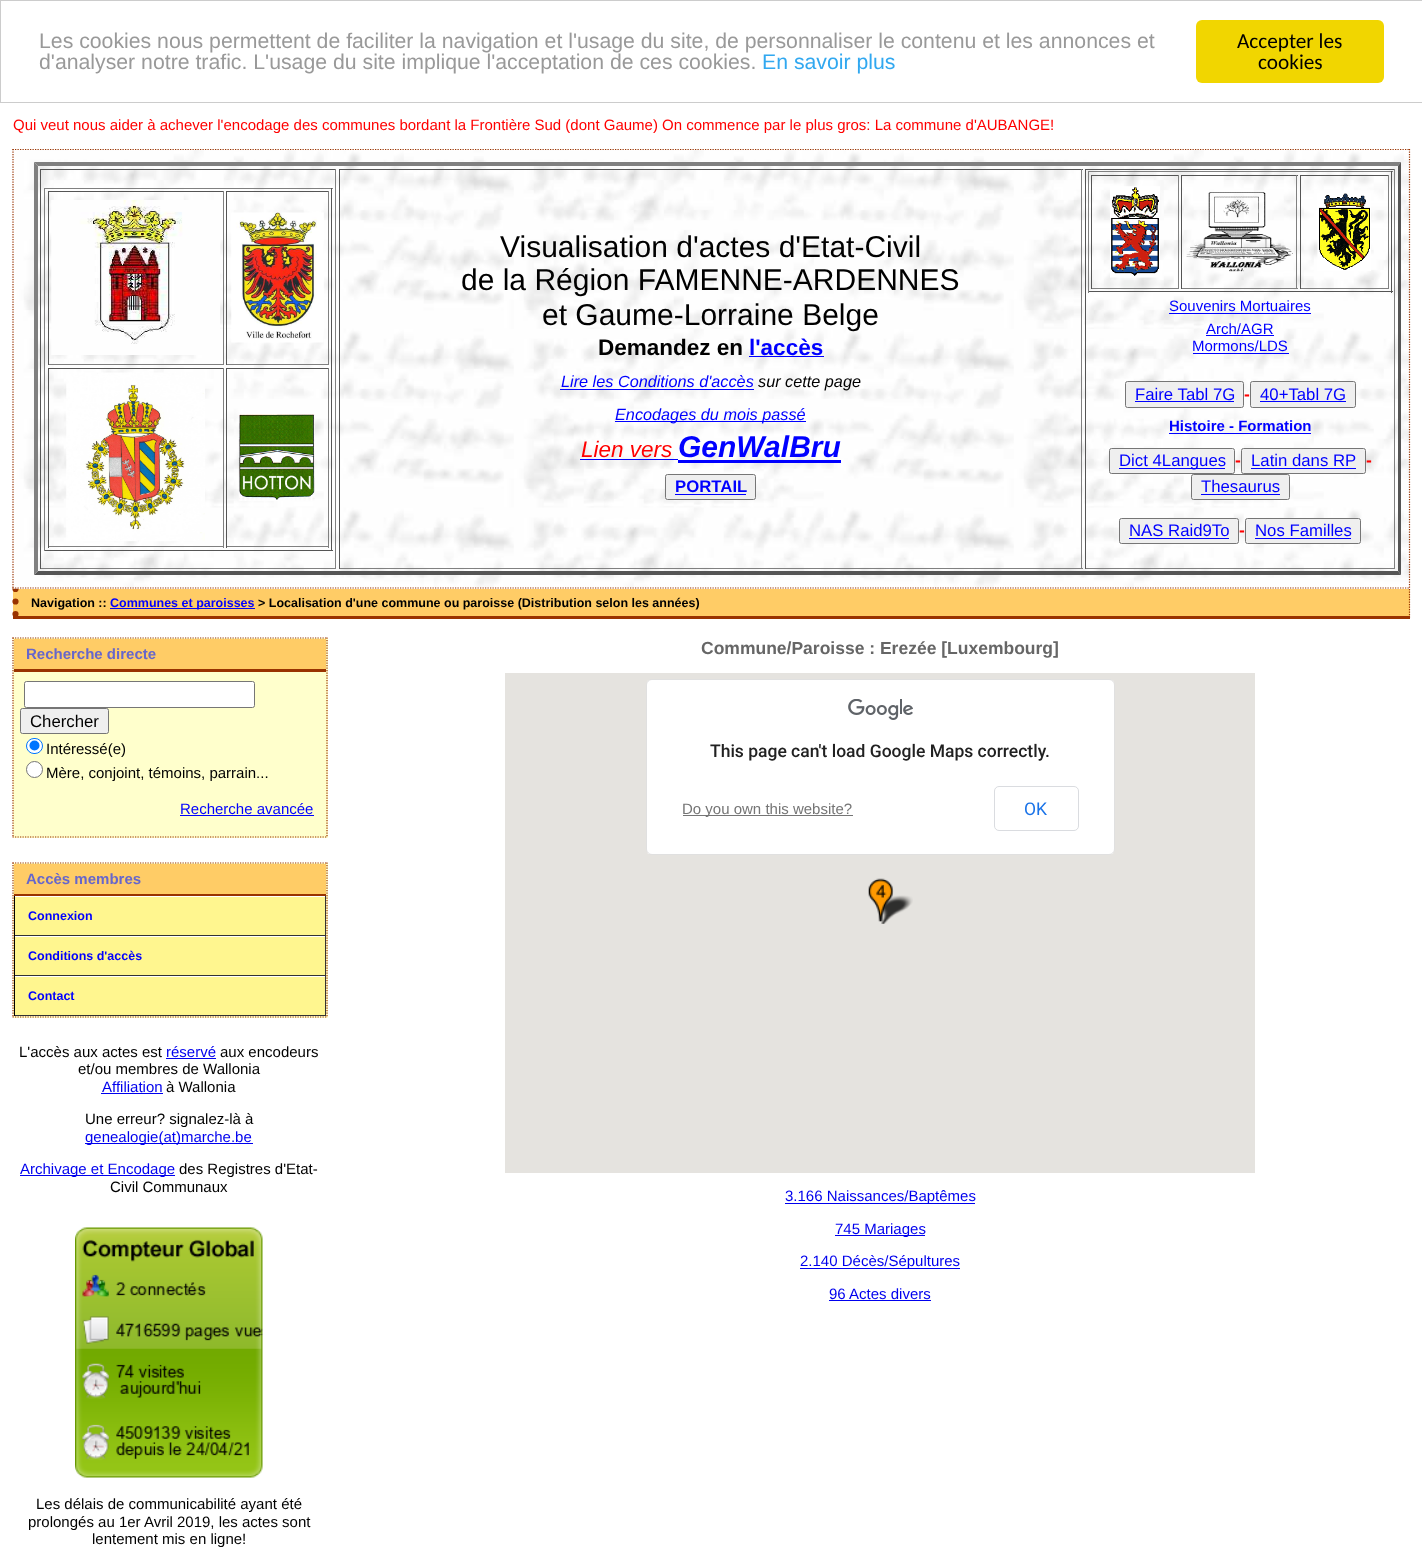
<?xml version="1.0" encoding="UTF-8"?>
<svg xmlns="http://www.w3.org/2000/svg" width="1422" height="1561">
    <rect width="100%" height="100%" fill="#FFFFFF"/>
    <rect x="0.5" y="0.5" width="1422" height="102" fill="none" stroke="#CCCCCC"/>
    <text font-family="Liberation Sans" font-size="21.25" fill="#999999">
        <tspan x="39" y="48">Les cookies nous permettent de faciliter la navigation et l'usage du site, de personnaliser le contenu et les annonces et</tspan>
        <tspan x="39" y="69">d'analyser notre trafic. L'usage du site implique l'acceptation de ces cookies.</tspan>
    </text>
    <text x="762" y="69" font-family="Liberation Sans" font-size="21.25" fill="#31A8F0">En savoir plus</text>
    <rect x="1196" y="20" width="188" height="63" rx="6" fill="#F1D600"/>
    <text x="1237" y="48" font-family="Carlito" font-size="21.25" fill="#000000">Accepter les</text>
    <text x="1258" y="69" font-family="Carlito" font-size="21.25" fill="#000000">cookies</text>
    <text x="13" y="130" font-family="Liberation Sans" font-size="15" fill="#FF0000">Qui veut nous aider à achever l'encodage des communes bordant la Frontière Sud (dont Gaume) On commence par le plus gros: La commune d'AUBANGE!</text>
    <rect x="13" y="589" width="1397" height="27" fill="#FFCC66"/>
    <path d="M 1409.5 589 V 619" fill="none" stroke="#993300" stroke-width="1.2" stroke-dasharray="1.25 1.25"/>
    <rect x="13" y="616" width="1397" height="3" fill="#993300"/>
    <path d="M 15.5 589 V 619" fill="none" stroke="#993300" stroke-width="6.2" stroke-linecap="round" stroke-dasharray="0 12.5"/>
    <image x="12" y="149" width="1398" height="440" href="img_01.png"/>
    <path d="M 12.5 149.5 H 1410" fill="none" stroke="#993300" stroke-width="1.2" stroke-dasharray="1.25 1.25"/>
    <path d="M 1409.5 149 V 589" fill="none" stroke="#993300" stroke-width="1.2" stroke-dasharray="1.25 1.25"/>
    <path d="M 12.5 588 H 1410" fill="none" stroke="#993300" stroke-width="1.2" stroke-dasharray="1.25 1.25"/>
    <path d="M 13 149 V 589" fill="none" stroke="#993300" stroke-width="1.2" stroke-dasharray="1.25 1.25"/>
    <path d="M 34 162 H 1401 L 1398 166 H 38 Z" fill="#808080"/>
    <path d="M 1401 162 V 575 L 1398 571 V 166 Z" fill="#555555"/>
    <path d="M 1401 575 H 34 L 38 571 H 1398 Z" fill="#555555"/>
    <path d="M 34 575 V 162 L 38 166 V 571 Z" fill="#808080"/>
    <rect x="40" y="169" width="296" height="1" fill="#555555"/>
    <rect x="335" y="169" width="1" height="400" fill="#808080"/>
    <rect x="40" y="568" width="296" height="1" fill="#808080"/>
    <rect x="40" y="169" width="1" height="400" fill="#555555"/>
    <rect x="44" y="188" width="289" height="1" fill="#808080"/>
    <rect x="331" y="188" width="1" height="363" fill="#555555"/>
    <rect x="44" y="550" width="289" height="1" fill="#555555"/>
    <rect x="44" y="188" width="1" height="363" fill="#808080"/>
    <rect x="48" y="191" width="176" height="1" fill="#555555"/>
    <rect x="223" y="191" width="1" height="174" fill="#808080"/>
    <rect x="48" y="364" width="176" height="1" fill="#808080"/>
    <rect x="48" y="191" width="1" height="174" fill="#555555"/>
    <image x="51" y="200" width="169" height="155" href="img_02.png"/>
    <rect x="226" y="191" width="103" height="1" fill="#555555"/>
    <rect x="328" y="191" width="1" height="174" fill="#808080"/>
    <rect x="226" y="364" width="103" height="1" fill="#808080"/>
    <rect x="226" y="191" width="1" height="174" fill="#555555"/>
    <image x="231" y="212" width="93" height="131" href="img_03.png"/>
    <rect x="48" y="368" width="176" height="1" fill="#555555"/>
    <rect x="223" y="368" width="1" height="180" fill="#808080"/>
    <rect x="48" y="546" width="176" height="1" fill="#808080"/>
    <rect x="48" y="368" width="1" height="180" fill="#555555"/>
    <image x="66" y="372" width="139" height="170" href="img_04.png"/>
    <rect x="226" y="368" width="103" height="1" fill="#555555"/>
    <rect x="328" y="368" width="1" height="180" fill="#808080"/>
    <rect x="226" y="546" width="103" height="1" fill="#808080"/>
    <rect x="226" y="368" width="1" height="180" fill="#555555"/>
    <image x="238" y="414" width="77" height="87" href="img_05.png"/>
    <rect x="339" y="169" width="744" height="1" fill="#555555"/>
    <rect x="1081" y="169" width="1" height="400" fill="#808080"/>
    <rect x="339" y="568" width="744" height="1" fill="#808080"/>
    <rect x="339" y="169" width="1" height="400" fill="#555555"/>
    <text x="500" y="257" font-family="Liberation Sans" font-size="30" fill="#000000">Visualisation d'actes d'Etat-Civil</text>
    <text x="461" y="290" font-family="Liberation Sans" font-size="30" fill="#000000">de la Région FAMENNE-ARDENNES</text>
    <text x="542" y="325" font-family="Liberation Sans" font-size="30" fill="#000000">et Gaume-Lorraine Belge</text>
    <text x="598" y="355" font-family="Liberation Sans" font-size="22.5" font-weight="700" fill="#000000">Demandez en</text>
    <text x="749" y="355" font-family="Liberation Sans" font-size="22.5" font-weight="700" fill="#0000FF">l'accès</text>
    <rect x="749" y="356" width="75" height="1" fill="#0000FF"/>
    <text x="561" y="387" font-family="Liberation Sans" font-size="16.25" font-style="italic" fill="#0000FF">Lire les Conditions d'accès</text>
    <text x="758" y="387" font-family="Liberation Sans" font-size="16.25" font-style="italic" fill="#000000">sur cette page</text>
    <rect x="560" y="389" width="194" height="1" fill="#0000FF"/>
    <rect x="615" y="421" width="191" height="1" fill="#0000FF"/>
    <text x="615" y="420" font-family="Liberation Sans" font-size="16.25" font-style="italic" fill="#0000FF">Encodages du mois passé</text>
    <text x="581" y="457" font-family="Liberation Sans" font-size="22.5" font-style="italic" fill="#FF0000">Lien vers</text>
    <rect x="580" y="459" width="98" height="1" fill="#0000FF"/>
    <text x="678" y="457" font-family="Liberation Sans" font-size="30" font-weight="700" font-style="italic" fill="#0000FF">GenWalBru</text>
    <rect x="678" y="460" width="163" height="3" fill="#0000FF"/>
    <rect x="665.5" y="474.5" width="90" height="25" rx="2" fill="#EFEFEF" stroke="#767676"/>
    <text x="675" y="492" font-family="Liberation Sans" font-size="16.75" font-weight="700" fill="#0000FF">PORTAIL</text>
    <rect x="675" y="494" width="71" height="1" fill="#0000FF"/>
    <rect x="1085" y="169" width="310" height="1" fill="#555555"/>
    <rect x="1394" y="169" width="1" height="400" fill="#808080"/>
    <rect x="1085" y="568" width="310" height="1" fill="#808080"/>
    <rect x="1085" y="169" width="1" height="400" fill="#555555"/>
    <rect x="1088" y="171" width="305" height="1" fill="#808080"/>
    <rect x="1391" y="171" width="1" height="122" fill="#555555"/>
    <rect x="1088" y="291" width="305" height="1" fill="#555555"/>
    <rect x="1088" y="171" width="1" height="122" fill="#808080"/>
    <rect x="1091" y="175" width="88" height="1" fill="#555555"/>
    <rect x="1178" y="175" width="1" height="114" fill="#808080"/>
    <rect x="1091" y="288" width="88" height="1" fill="#808080"/>
    <rect x="1091" y="175" width="1" height="114" fill="#555555"/>
    <image x="1110" y="186" width="50" height="92" href="img_06.png"/>
    <rect x="1181" y="175" width="117" height="1" fill="#555555"/>
    <rect x="1296" y="175" width="1" height="114" fill="#808080"/>
    <rect x="1181" y="288" width="117" height="1" fill="#808080"/>
    <rect x="1181" y="175" width="1" height="114" fill="#555555"/>
    <image x="1186" y="192" width="107" height="80" href="img_07.png"/>
    <rect x="1300" y="175" width="89" height="1" fill="#555555"/>
    <rect x="1388" y="175" width="1" height="114" fill="#808080"/>
    <rect x="1300" y="288" width="89" height="1" fill="#808080"/>
    <rect x="1300" y="175" width="1" height="114" fill="#555555"/>
    <image x="1317" y="193" width="54" height="78" href="img_08.png"/>
    <text x="1169" y="311" font-family="Liberation Sans" font-size="15" fill="#0000FF">Souvenirs Mortuaires</text>
    <rect x="1169" y="313" width="142" height="1" fill="#0000FF"/>
    <text x="1206" y="334" font-family="Liberation Sans" font-size="15" fill="#0000FF">Arch/AGR</text>
    <rect x="1206" y="335" width="68" height="1" fill="#0000FF"/>
    <text x="1192" y="351" font-family="Liberation Sans" font-size="15" fill="#0000FF">Mormons/LDS</text>
    <rect x="1193" y="353" width="96" height="1" fill="#0000FF"/>
    <rect x="1125.5" y="381.5" width="118" height="26" rx="2" fill="#EFEFEF" stroke="#767676"/>
    <text x="1135" y="400" font-family="Liberation Sans" font-size="16.75" fill="#0000FF">Faire Tabl 7G</text>
    <rect x="1135" y="401" width="99" height="1" fill="#0000FF"/>
    <text x="1244" y="400" font-family="Liberation Sans" font-size="17.5" font-weight="700" fill="#FF0000">-</text>
    <rect x="1250.5" y="381.5" width="105" height="26" rx="2" fill="#EFEFEF" stroke="#767676"/>
    <text x="1260" y="400" font-family="Liberation Sans" font-size="16.75" fill="#0000FF">40+Tabl 7G</text>
    <rect x="1260" y="401" width="86" height="1" fill="#0000FF"/>
    <text x="1169" y="431" font-family="Liberation Sans" font-size="15" font-weight="700" fill="#0000FF">Histoire - Formation</text>
    <rect x="1169" y="433" width="142" height="1" fill="#0000FF"/>
    <rect x="1109.5" y="448.5" width="125" height="25" rx="2" fill="#EFEFEF" stroke="#767676"/>
    <rect x="1119" y="468" width="106" height="1" fill="#0000FF"/>
    <text x="1119" y="466" font-family="Liberation Sans" font-size="16.75" fill="#0000FF">Dict 4Langues</text>
    <rect x="1241.5" y="448.5" width="124" height="25" rx="2" fill="#EFEFEF" stroke="#767676"/>
    <text x="1251" y="466" font-family="Liberation Sans" font-size="16.75" fill="#0000FF">Latin dans RP</text>
    <rect x="1251" y="468" width="105" height="1" fill="#0000FF"/>
    <text x="1366" y="466" font-family="Liberation Sans" font-size="17.5" font-weight="700" fill="#FF0000">-</text>
    <rect x="1191.5" y="474.5" width="98" height="25" rx="2" fill="#EFEFEF" stroke="#767676"/>
    <text x="1201" y="492" font-family="Liberation Sans" font-size="16.75" fill="#0000FF">Thesaurus</text>
    <rect x="1201" y="494" width="79" height="1" fill="#0000FF"/>
    <text x="1235" y="466" font-family="Liberation Sans" font-size="17.5" font-weight="700" fill="#FF0000">-</text>
    <rect x="1119.5" y="518.5" width="119" height="25" rx="2" fill="#EFEFEF" stroke="#767676"/>
    <text x="1129" y="536" font-family="Liberation Sans" font-size="16.75" fill="#0000FF">NAS Raid9To</text>
    <rect x="1129" y="538" width="100" height="1" fill="#0000FF"/>
    <text x="1239" y="536" font-family="Liberation Sans" font-size="17.5" font-weight="700" fill="#FF0000">-</text>
    <rect x="1245.5" y="518.5" width="115" height="25" rx="2" fill="#EFEFEF" stroke="#767676"/>
    <text x="1255" y="536" font-family="Liberation Sans" font-size="16.75" fill="#0000FF">Nos Familles</text>
    <rect x="1255" y="538" width="96" height="1" fill="#0000FF"/>
    <text x="31" y="607" font-family="Liberation Sans" font-size="12.5" font-weight="700" fill="#000000">Navigation ::</text>
    <rect x="110" y="608" width="145" height="1" fill="#0000FF"/>
    <text x="110" y="607" font-family="Liberation Sans" font-size="12.5" font-weight="700" fill="#0000FF">Communes et paroisses</text>
    <text x="258" y="607" font-family="Liberation Sans" font-size="12.5" font-weight="700" fill="#000000">&gt; Localisation d'une commune ou paroisse (Distribution selon les années)</text>
    <rect x="13" y="638" width="315" height="200" fill="#FFFFCC"/>
    <path d="M 12.5 638 H 327.5" fill="none" stroke="#993300" stroke-width="1.2" stroke-dasharray="1.25 1.25"/>
    <path d="M 327 637.5 V 837.5" fill="none" stroke="#993300" stroke-width="1.2" stroke-dasharray="1.25 1.25"/>
    <path d="M 12.5 837 H 327.5" fill="none" stroke="#993300" stroke-width="1.2" stroke-dasharray="1.25 1.25"/>
    <path d="M 13 637.5 V 837.5" fill="none" stroke="#993300" stroke-width="1.2" stroke-dasharray="1.25 1.25"/>
    <rect x="14" y="639" width="312" height="30" fill="#FFCC66"/>
    <rect x="14" y="669" width="312" height="3" fill="#993300"/>
    <text x="26" y="659" font-family="Liberation Sans" font-size="15" font-weight="700" fill="#6666CC">Recherche directe</text>
    <rect x="24.5" y="681.5" width="230" height="26" rx="2" fill="#FFFFFF" stroke="#767676"/>
    <rect x="20.5" y="708.5" width="88" height="25" rx="2" fill="#EFEFEF" stroke="#767676"/>
    <text x="30" y="727" font-family="Liberation Sans" font-size="16.75" fill="#000000">Chercher</text>
    <rect x="26.5" y="738.5" width="16" height="15" rx="7.5" fill="#FFFFFF" stroke="#0075FF"/>
    <circle cx="34.5" cy="745.5" r="5" fill="#0075FF"/>
    <text x="46" y="754" font-family="Liberation Sans" font-size="15" fill="#000000">Intéressé(e)</text>
    <circle cx="34.5" cy="769.5" r="8" fill="#FFFFFF" stroke="#767676"/>
    <text x="46" y="778" font-family="Liberation Sans" font-size="15" fill="#000000">Mère, conjoint, témoins, parrain...</text>
    <text x="180" y="814" font-family="Liberation Sans" font-size="15" fill="#0000FF">Recherche avancée</text>
    <rect x="180" y="815" width="134" height="1" fill="#0000FF"/>
    <rect x="13" y="863" width="315" height="155" fill="#FFFFCC"/>
    <path d="M 12.5 863 H 327.5" fill="none" stroke="#993300" stroke-width="1.2" stroke-dasharray="1.25 1.25"/>
    <path d="M 327 862.5 V 1017.5" fill="none" stroke="#993300" stroke-width="1.2" stroke-dasharray="1.25 1.25"/>
    <path d="M 12.5 1017 H 327.5" fill="none" stroke="#993300" stroke-width="1.2" stroke-dasharray="1.25 1.25"/>
    <path d="M 13 862.5 V 1017.5" fill="none" stroke="#993300" stroke-width="1.2" stroke-dasharray="1.25 1.25"/>
    <rect x="14" y="864" width="312" height="30" fill="#FFCC66"/>
    <rect x="14" y="894" width="312" height="2" fill="#993300"/>
    <text x="26" y="884" font-family="Liberation Sans" font-size="15" font-weight="700" fill="#6666CC">Accès membres</text>
    <rect x="15" y="897" width="310" height="38" fill="#FFF68F"/>
    <rect x="14" y="896" width="312" height="1" fill="#FFFFFF"/>
    <rect x="325" y="896" width="1" height="40" fill="#333333"/>
    <rect x="14" y="935" width="312" height="1" fill="#333333"/>
    <rect x="14" y="896" width="1" height="40" fill="#000000"/>
    <text x="28" y="920" font-family="Liberation Sans" font-size="12.5" font-weight="700" fill="#0000FF">Connexion</text>
    <rect x="15" y="937" width="310" height="38" fill="#FFF68F"/>
    <rect x="14" y="936" width="312" height="1" fill="#FFFFFF"/>
    <rect x="325" y="936" width="1" height="40" fill="#333333"/>
    <rect x="14" y="975" width="312" height="1" fill="#333333"/>
    <rect x="14" y="936" width="1" height="40" fill="#000000"/>
    <text x="28" y="960" font-family="Liberation Sans" font-size="12.5" font-weight="700" fill="#0000FF">Conditions d'accès</text>
    <rect x="15" y="977" width="310" height="38" fill="#FFF68F"/>
    <rect x="14" y="976" width="312" height="1" fill="#FFFFFF"/>
    <rect x="325" y="976" width="1" height="40" fill="#333333"/>
    <rect x="14" y="1015" width="312" height="1" fill="#333333"/>
    <rect x="14" y="976" width="1" height="40" fill="#000000"/>
    <text x="28" y="1000" font-family="Liberation Sans" font-size="12.5" font-weight="700" fill="#0000FF">Contact</text>
    <text x="19" y="1057" font-family="Liberation Sans" font-size="15" fill="#000000">L'accès aux actes est</text>
    <text x="166" y="1057" font-family="Liberation Sans" font-size="15" fill="#0000EE">réservé</text>
    <rect x="166" y="1058" width="50" height="1" fill="#0000EE"/>
    <text x="220" y="1057" font-family="Liberation Sans" font-size="15" fill="#000000">aux encodeurs</text>
    <text x="78" y="1074" font-family="Liberation Sans" font-size="15" fill="#000000">et/ou membres de Wallonia</text>
    <text x="102" y="1092" font-family="Liberation Sans" font-size="15" fill="#0000EE">Affiliation</text>
    <rect x="101" y="1093" width="62" height="1" fill="#0000EE"/>
    <text x="166" y="1092" font-family="Liberation Sans" font-size="15" fill="#000000">à Wallonia</text>
    <text x="85" y="1124" font-family="Liberation Sans" font-size="15" fill="#000000">Une erreur? signalez-là à</text>
    <rect x="85" y="1143" width="168" height="1" fill="#0000EE"/>
    <text x="85" y="1142" font-family="Liberation Sans" font-size="15" fill="#0000EE">genealogie(at)marche.be</text>
    <rect x="20" y="1175" width="155" height="1" fill="#0000EE"/>
    <text x="20" y="1174" font-family="Liberation Sans" font-size="15" fill="#0000EE">Archivage et Encodage</text>
    <text x="179" y="1174" font-family="Liberation Sans" font-size="15" fill="#000000">des Registres d'Etat-</text>
    <text x="110" y="1192" font-family="Liberation Sans" font-size="15" fill="#000000">Civil Communaux</text>
    <image x="75" y="1227" width="188" height="251" href="img_09.png"/>
    <text x="36" y="1509" font-family="Liberation Sans" font-size="15" fill="#000000">Les délais de communicabilité ayant été</text>
    <text x="28" y="1527" font-family="Liberation Sans" font-size="15" fill="#000000">prolongés au 1er Avril 2019, les actes sont</text>
    <text x="92" y="1544" font-family="Liberation Sans" font-size="15" fill="#000000">lentement mis en ligne!</text>
    <text x="701" y="654" font-family="Liberation Sans" font-size="17.5" font-weight="700" fill="#666666">Commune/Paroisse : Erezée [Luxembourg]</text>
    <rect x="505" y="673" width="750" height="500" fill="#E5E3DF"/>
    <image x="868" y="878" width="45" height="46" href="img_10.png"/>
    <rect x="646" y="679" width="469" height="176" rx="6" fill="#FFFFFF"/>
    <rect x="646.5" y="679.5" width="468" height="175" rx="5.5" fill="none" stroke="#000000" stroke-opacity="0.12"/>
    <image x="848" y="699" width="65" height="21" href="img_11.png"/>
    <text x="710" y="757" font-family="Roboto" font-size="17.5" font-weight="500" fill="#212121">This page can't load Google Maps correctly.</text>
    <rect x="683" y="815" width="170" height="1" fill="#757575"/>
    <text x="682" y="814" font-family="Liberation Sans" font-size="15" fill="#757575">Do you own this website?</text>
    <rect x="994.5" y="786.5" width="84" height="44" rx="4.5" fill="none" stroke="#DADCE0"/>
    <text x="1024" y="815" font-family="Roboto" font-size="17.5" fill="#1A73E8">OK</text>
    <rect x="785" y="1203" width="190" height="1" fill="#0000EE"/>
    <text x="785" y="1201" font-family="Liberation Sans" font-size="15" fill="#0000EE">3.166 Naissances/Baptêmes</text>
    <rect x="835" y="1235" width="90" height="1" fill="#0000EE"/>
    <text x="835" y="1234" font-family="Liberation Sans" font-size="15" fill="#0000EE">745 Mariages</text>
    <rect x="800" y="1268" width="160" height="1" fill="#0000EE"/>
    <text x="800" y="1266" font-family="Liberation Sans" font-size="15" fill="#0000EE">2.140 Décès/Sépultures</text>
    <text x="829" y="1299" font-family="Liberation Sans" font-size="15" fill="#0000EE">96 Actes divers</text>
    <rect x="829" y="1300" width="102" height="1" fill="#0000EE"/>
</svg>
